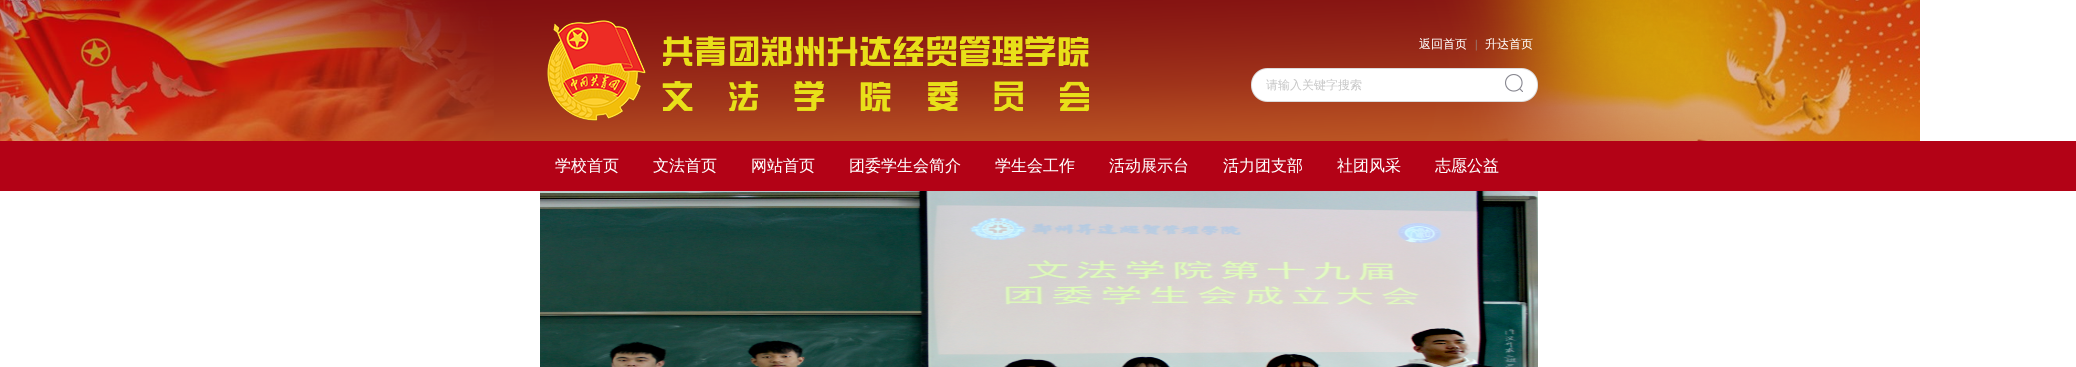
<?xml version="1.0" encoding="UTF-8"?>
<svg xmlns="http://www.w3.org/2000/svg" width="2076" height="367">
    <rect width="100%" height="100%" fill="#FFFFFF"/>
    <image x="0" y="0" width="1920" height="141" href="img_01.png"/>
    <image x="547" y="20" width="542" height="101" href="img_02.png"/>
    <text x="1419" y="48" font-family="WenQuanYi Zen Hei" font-size="12" font-weight="500" fill="#FFFFFF">返回首页</text>
    <text x="1475" y="48" font-family="Liberation Serif" font-size="12" fill="#999999">|</text>
    <text x="1485" y="48" font-family="WenQuanYi Zen Hei" font-size="12" font-weight="500" fill="#FFFFFF">升达首页</text>
    <image x="1251" y="68" width="287" height="34" href="img_03.png"/>
    <text x="1266" y="89" font-family="WenQuanYi Zen Hei" font-size="12" font-weight="500" fill="#C8C8C8">请输入关键字搜索</text>
    <image x="1505" y="74" width="18" height="18" href="img_04.png"/>
    <rect x="0" y="141" width="2076" height="50" fill="#B30216"/>
    <text x="555" y="171" font-family="WenQuanYi Zen Hei" font-size="16" font-weight="500" fill="#FFFFFF">学校首页</text>
    <text x="653" y="171" font-family="WenQuanYi Zen Hei" font-size="16" font-weight="500" fill="#FFFFFF">文法首页</text>
    <text x="751" y="171" font-family="WenQuanYi Zen Hei" font-size="16" font-weight="500" fill="#FFFFFF">网站首页</text>
    <text x="849" y="171" font-family="WenQuanYi Zen Hei" font-size="16" font-weight="500" fill="#FFFFFF">团委学生会简介</text>
    <text x="995" y="171" font-family="WenQuanYi Zen Hei" font-size="16" font-weight="500" fill="#FFFFFF">学生会工作</text>
    <text x="1109" y="171" font-family="WenQuanYi Zen Hei" font-size="16" font-weight="500" fill="#FFFFFF">活动展示台</text>
    <text x="1223" y="171" font-family="WenQuanYi Zen Hei" font-size="16" font-weight="500" fill="#FFFFFF">活力团支部</text>
    <text x="1337" y="171" font-family="WenQuanYi Zen Hei" font-size="16" font-weight="500" fill="#FFFFFF">社团风采</text>
    <text x="1435" y="171" font-family="WenQuanYi Zen Hei" font-size="16" font-weight="500" fill="#FFFFFF">志愿公益</text>
    <image x="540" y="191" width="998" height="176" href="img_05.png"/>
</svg>
